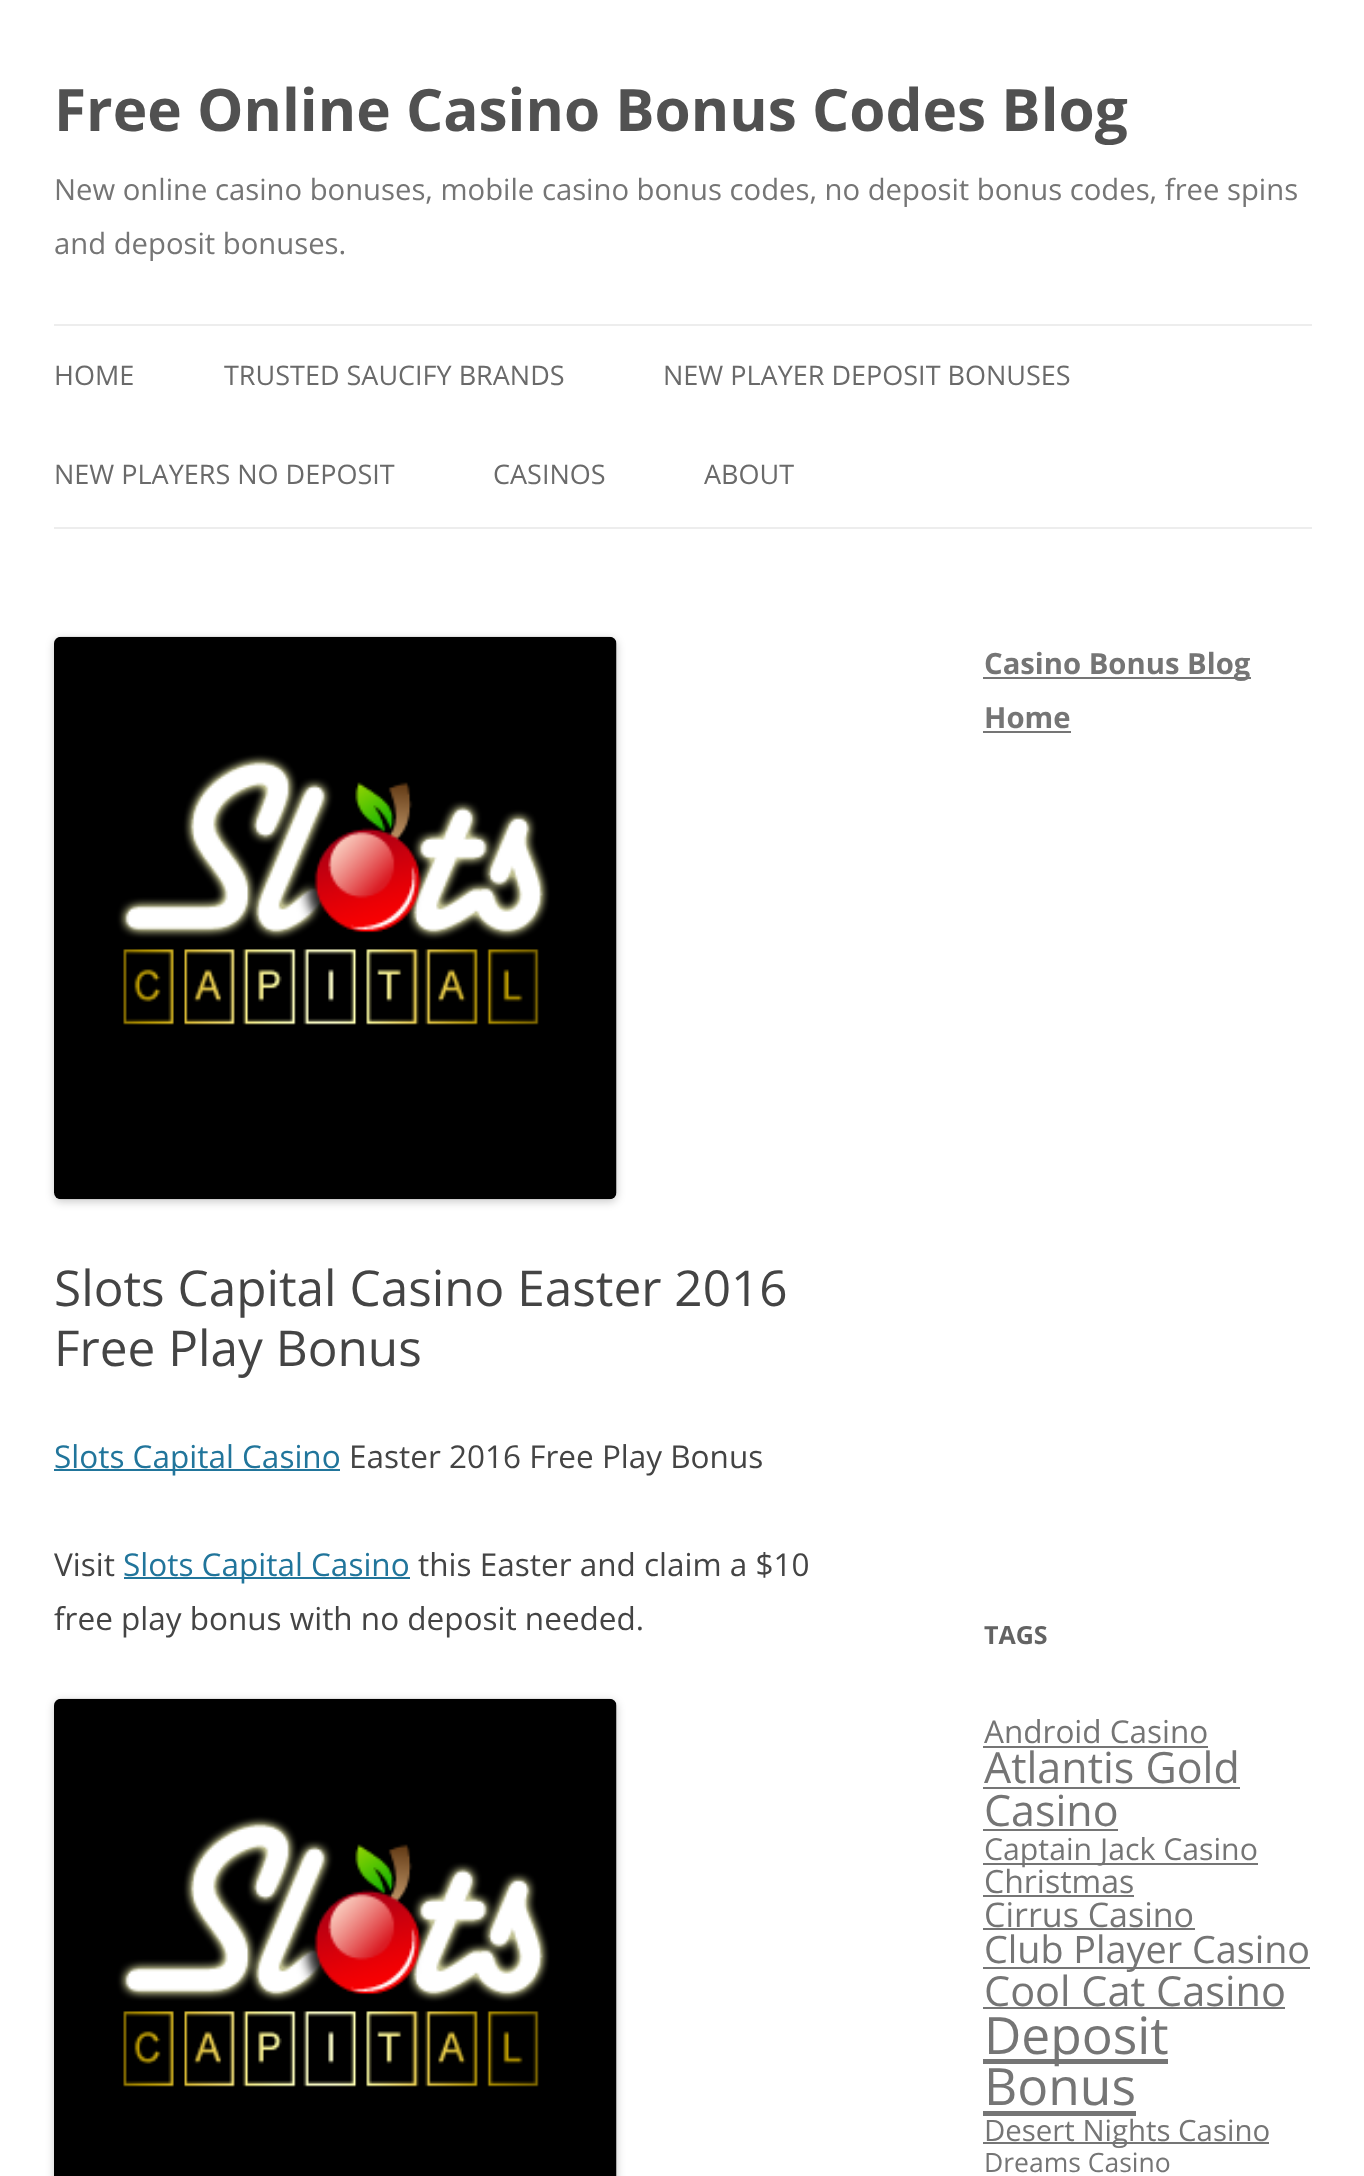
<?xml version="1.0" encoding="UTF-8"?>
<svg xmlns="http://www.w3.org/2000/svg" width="1364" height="2176">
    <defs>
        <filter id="blur1" x="-50%" y="-200%" width="200%" height="500%"><feGaussianBlur stdDeviation="4.5"/></filter>
    </defs>
    <rect width="100%" height="100%" fill="#FFFFFF"/>
    <text x="54" y="131" font-family="Open Sans" font-size="58.5" font-weight="700" fill="#515151">Free Online Casino Bonus Codes Blog</text>
    <text font-family="Open Sans" font-size="29.25" fill="#757575">
        <tspan x="54" y="200">New online casino bonuses, mobile casino bonus codes, no deposit bonus codes, free spins</tspan>
        <tspan x="54" y="254">and deposit bonuses.</tspan>
    </text>
    <rect x="54" y="324" width="1258" height="2" fill="#EDEDED"/>
    <rect x="54" y="527" width="1258" height="2" fill="#EDEDED"/>
    <text x="54" y="385" font-family="Open Sans" font-size="27" fill="#6A6A6A">HOME</text>
    <text x="224" y="385" font-family="Open Sans" font-size="27" fill="#6A6A6A">TRUSTED SAUCIFY BRANDS</text>
    <text x="663" y="385" font-family="Open Sans" font-size="27" fill="#6A6A6A">NEW PLAYER DEPOSIT BONUSES</text>
    <text x="54" y="484" font-family="Open Sans" font-size="27" fill="#6A6A6A">NEW PLAYERS NO DEPOSIT</text>
    <text x="493" y="484" font-family="Open Sans" font-size="27" fill="#6A6A6A">CASINOS</text>
    <text x="704" y="484" font-family="Open Sans" font-size="27" fill="#6A6A6A">ABOUT</text>
    <rect x="54" y="639" width="563" height="563" rx="7" fill="#000000" fill-opacity="0.2" filter="url(#blur1)"/>
    <image x="54" y="636" width="563" height="564" href="img_01.png"/>
    <text font-family="Open Sans" font-size="49.5" fill="#444444">
        <tspan x="54" y="1306">Slots Capital Casino Easter 2016</tspan>
        <tspan x="54" y="1366">Free Play Bonus</tspan>
    </text>
    <rect x="54" y="1469" width="286" height="2" fill="#21759B"/>
    <text x="54" y="1468" font-family="Open Sans" font-size="31.5" fill="#21759B">Slots Capital Casino</text>
    <text x="349" y="1468" font-family="Open Sans" font-size="31.5" fill="#444444">Easter 2016 Free Play Bonus</text>
    <text x="54" y="1576" font-family="Open Sans" font-size="31.5" fill="#444444">Visit</text>
    <rect x="124" y="1577" width="286" height="2" fill="#21759B"/>
    <text x="123" y="1576" font-family="Open Sans" font-size="31.5" fill="#21759B">Slots Capital Casino</text>
    <text x="418" y="1576" font-family="Open Sans" font-size="31.5" fill="#444444">this Easter and claim a $10</text>
    <text x="54" y="1630" font-family="Open Sans" font-size="31.5" fill="#444444">free play bonus with no deposit needed.</text>
    <rect x="54" y="1701" width="563" height="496" rx="7" fill="#000000" fill-opacity="0.2" filter="url(#blur1)"/>
    <image x="54" y="1698" width="563" height="478" href="img_02.png"/>
    <rect x="983" y="677" width="268" height="2" fill="#757575"/>
    <text font-family="Open Sans" font-size="29.25" font-weight="700" fill="#757575">
        <tspan x="984" y="674">Casino Bonus Blog</tspan>
        <tspan x="984" y="728">Home</tspan>
    </text>
    <rect x="983" y="731" width="88" height="2" fill="#757575"/>
    <text x="984" y="1644" font-family="Open Sans" font-size="25" font-weight="700" fill="#636363">TAGS</text>
    <text x="984" y="1743" font-family="Open Sans" font-size="31.5" fill="#757575">Android Casino</text>
    <rect x="983" y="1746" width="225" height="2" fill="#757575"/>
    <text x="984" y="1783" font-family="Open Sans" font-size="43" fill="#757575">Atlantis Gold</text>
    <rect x="983" y="1787" width="257" height="2" fill="#757575"/>
    <text x="984" y="1826" font-family="Open Sans" font-size="43" fill="#757575">Casino</text>
    <rect x="983" y="1829" width="135" height="2" fill="#757575"/>
    <rect x="983" y="1863" width="275" height="2" fill="#757575"/>
    <text x="984" y="1860" font-family="Open Sans" font-size="30.25" fill="#757575">Captain Jack Casino</text>
    <text x="984" y="1893" font-family="Open Sans" font-size="32" fill="#757575">Christmas</text>
    <rect x="983" y="1895" width="151" height="2" fill="#757575"/>
    <text x="984" y="1927" font-family="Open Sans" font-size="34" fill="#757575">Cirrus Casino</text>
    <rect x="983" y="1928" width="212" height="2" fill="#757575"/>
    <rect x="983" y="1967" width="327" height="2" fill="#757575"/>
    <text x="984" y="1963" font-family="Open Sans" font-size="37.75" fill="#757575">Club Player Casino</text>
    <text x="984" y="2006" font-family="Open Sans" font-size="41.5" fill="#757575">Cool Cat Casino</text>
    <rect x="983" y="2007" width="302" height="2" fill="#757575"/>
    <rect x="983" y="2059" width="185" height="5" fill="#757575"/>
    <text font-family="Open Sans" font-size="51.5" fill="#757575">
        <tspan x="984" y="2054">Deposit</tspan>
        <tspan x="984" y="2105">Bonus</tspan>
    </text>
    <rect x="983" y="2111" width="153" height="5" fill="#757575"/>
    <rect x="983" y="2142" width="286" height="2" fill="#757575"/>
    <text x="984" y="2141" font-family="Open Sans" font-size="29.4" fill="#757575">Desert Nights Casino</text>
    <text x="984" y="2172" font-family="Open Sans" font-size="26.5" fill="#757575">Dreams Casino</text>
</svg>
